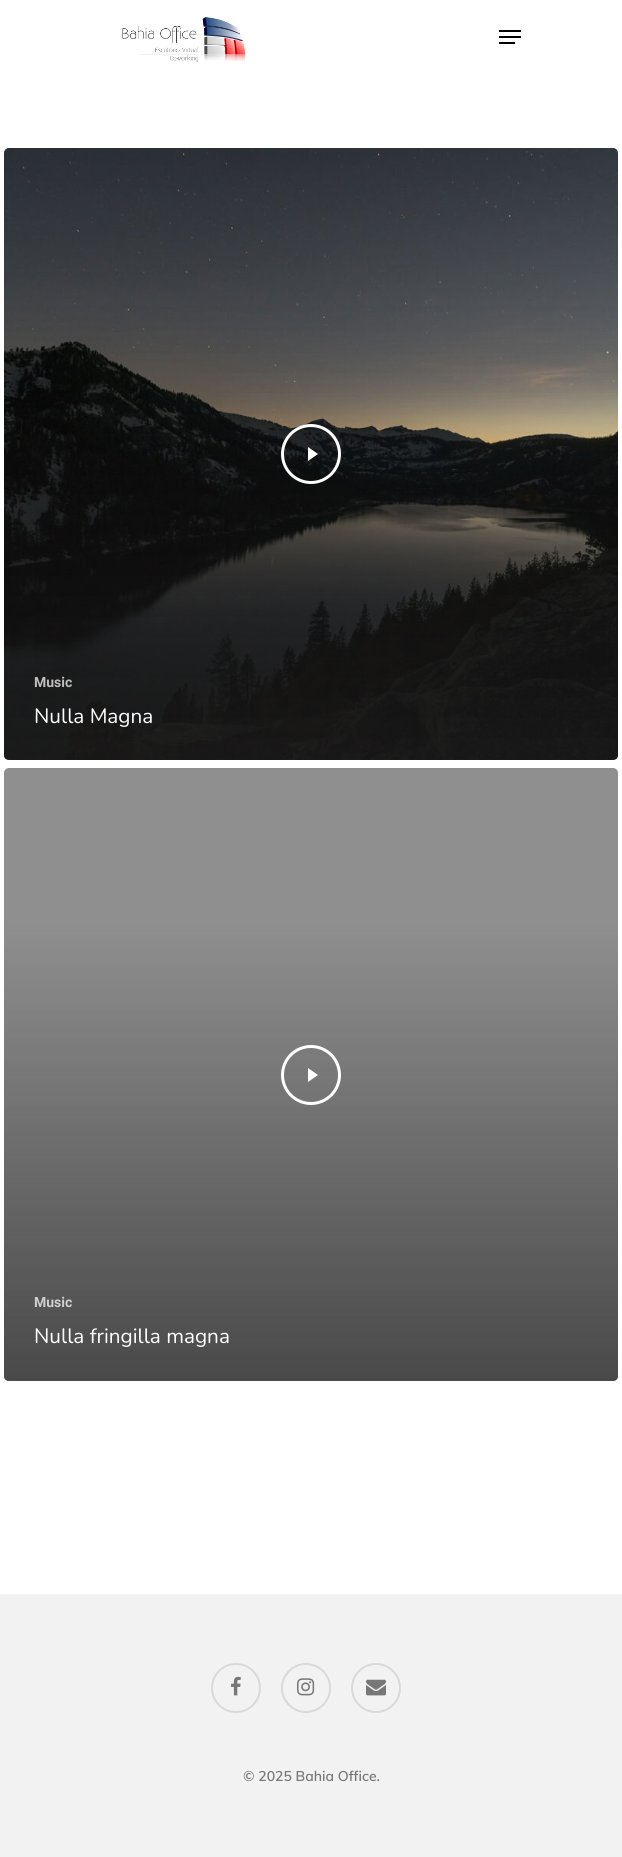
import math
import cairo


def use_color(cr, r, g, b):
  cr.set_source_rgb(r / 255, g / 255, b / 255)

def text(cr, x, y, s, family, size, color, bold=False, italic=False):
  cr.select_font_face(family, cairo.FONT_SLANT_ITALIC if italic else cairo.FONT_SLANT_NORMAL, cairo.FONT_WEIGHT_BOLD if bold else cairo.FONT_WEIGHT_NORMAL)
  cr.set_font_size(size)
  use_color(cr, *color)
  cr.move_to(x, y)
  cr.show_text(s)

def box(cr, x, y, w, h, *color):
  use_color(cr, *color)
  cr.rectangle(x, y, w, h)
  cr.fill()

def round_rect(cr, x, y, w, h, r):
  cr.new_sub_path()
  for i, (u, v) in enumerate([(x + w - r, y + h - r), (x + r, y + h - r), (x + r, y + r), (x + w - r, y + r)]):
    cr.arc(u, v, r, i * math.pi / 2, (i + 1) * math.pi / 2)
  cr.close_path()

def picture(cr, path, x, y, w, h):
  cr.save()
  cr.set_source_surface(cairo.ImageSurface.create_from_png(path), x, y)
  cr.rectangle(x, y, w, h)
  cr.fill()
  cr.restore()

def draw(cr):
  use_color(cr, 255, 255, 255)
  cr.paint()
  picture(cr, "img_01.png", 122, 17, 124, 45)
  box(cr, 499, 30, 22, 2, 0, 0, 0)
  box(cr, 499, 42, 16, 2, 0, 0, 0)
  box(cr, 499, 36, 22, 2, 0, 0, 0)
  picture(cr, "img_02.png", 4, 148, 614, 612)
  gradient = cairo.LinearGradient(313, 302, 313, 763)
  gradient.add_color_stop_rgba(0, 0.137, 0.137, 0.137, 0)
  gradient.add_color_stop_rgba(1, 0.137, 0.137, 0.137, 0.65)
  cr.set_source(gradient)
  cr.new_path()
  cr.move_to(4, 302)
  cr.line_to(618, 302)
  cr.line_to(618, 755)
  cr.curve_to(618, 758, 616, 760, 613, 760)
  cr.line_to(9, 760)
  cr.curve_to(6, 760, 4, 758, 4, 755)
  cr.close_path()
  cr.fill()
  use_color(cr, 255, 255, 255)
  cr.new_path()
  cr.move_to(308, 447)
  cr.line_to(308, 461)
  cr.line_to(318, 454)
  cr.close_path()
  cr.fill()
  cr.arc(311, 454, 28.5, 0, 2 * math.pi)
  cr.set_line_width(3)
  cr.stroke()
  use_color(cr, 179, 179, 179)
  round_rect(cr, 4, 768, 614, 613, 5)
  cr.fill()
  cr.set_source_rgba(0, 0, 0, 0.2)
  round_rect(cr, 4, 768, 614, 613, 5)
  cr.fill()
  gradient = cairo.LinearGradient(313, 922, 313, 1384)
  gradient.add_color_stop_rgba(0, 0.137, 0.137, 0.137, 0)
  gradient.add_color_stop_rgba(1, 0.137, 0.137, 0.137, 0.65)
  cr.set_source(gradient)
  cr.new_path()
  cr.move_to(4, 922)
  cr.line_to(618, 922)
  cr.line_to(618, 1376)
  cr.curve_to(618, 1379, 616, 1381, 613, 1381)
  cr.line_to(9, 1381)
  cr.curve_to(6, 1381, 4, 1379, 4, 1376)
  cr.close_path()
  cr.fill()
  use_color(cr, 255, 255, 255)
  cr.new_path()
  cr.move_to(308, 1068)
  cr.line_to(308, 1082)
  cr.line_to(318, 1075)
  cr.close_path()
  cr.fill()
  cr.arc(311, 1075, 28.5, 0, 2 * math.pi)
  cr.stroke()
  box(cr, 0, 1595, 622, 262, 242, 242, 242)
  box(cr, 0, 1594, 622, 1, 244, 244, 244)
  picture(cr, "img_03.png", 231, 1676, 10, 20)
  cr.arc(236, 1688, 24, 0, 2 * math.pi)
  use_color(cr, 217, 217, 217)
  cr.set_line_width(2)
  cr.stroke()
  picture(cr, "img_04.png", 297, 1678, 18, 18)
  cr.arc(306, 1688, 24, 0, 2 * math.pi)
  cr.stroke()
  picture(cr, "img_05.png", 366, 1679, 20, 17)
  cr.arc(376, 1688, 24, 0, 2 * math.pi)
  cr.stroke()
  text(cr, 34, 687, "Music", "Roboto", 14, (191, 191, 191), bold=True)
  text(cr, 34, 723, "Nulla Magna", "Nunito", 20.75, (255, 255, 255))
  text(cr, 34, 1307, "Music", "Roboto", 14, (208, 208, 208), bold=True)
  text(cr, 34, 1343, "Nulla fringilla magna", "Nunito", 20.75, (255, 255, 255))
  text(cr, 243, 1781, "© 2025 Bahia Office.", "Muli SemiBold", 14, (119, 119, 119))


surface = cairo.ImageSurface(cairo.FORMAT_RGB24, 622, 1857)
cr = cairo.Context(surface)
options = cairo.FontOptions()
options.set_hint_metrics(cairo.HINT_METRICS_OFF)
options.set_hint_style(cairo.HINT_STYLE_NONE)
cr.set_font_options(options)
cr.set_miter_limit(4)
draw(cr)
surface.write_to_png("out.png")
